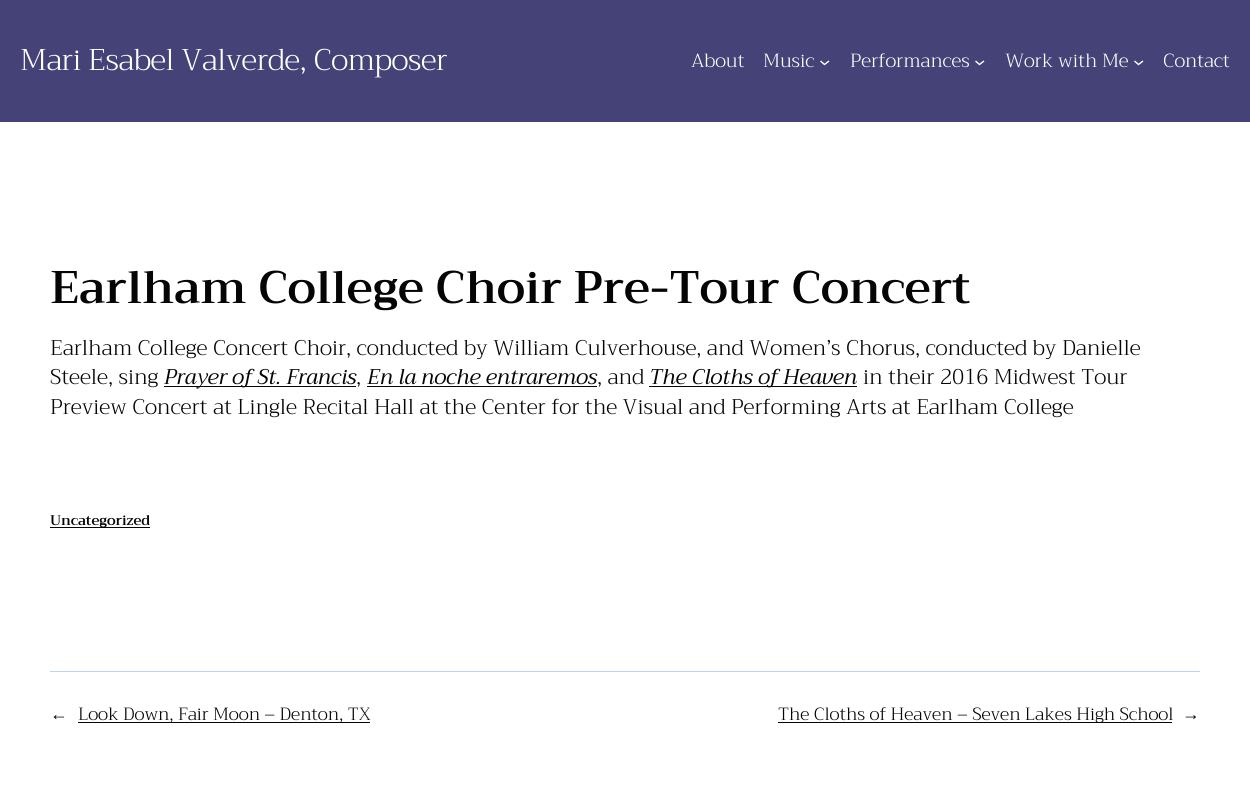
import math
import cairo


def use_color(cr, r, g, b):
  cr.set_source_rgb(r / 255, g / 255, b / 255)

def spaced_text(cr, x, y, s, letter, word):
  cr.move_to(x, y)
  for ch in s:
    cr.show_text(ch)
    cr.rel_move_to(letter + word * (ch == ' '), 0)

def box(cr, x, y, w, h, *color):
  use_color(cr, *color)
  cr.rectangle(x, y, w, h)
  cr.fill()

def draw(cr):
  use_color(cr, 255, 255, 255)
  cr.paint()
  box(cr, 0, 0, 1250, 122, 68, 66, 118)
  cr.new_path()
  cr.move_to(820.5, 61)
  cr.line_to(824.5, 64.5)
  cr.line_to(829, 61)
  use_color(cr, 255, 255, 255)
  cr.set_line_width(1.4)
  cr.stroke()
  cr.new_path()
  cr.move_to(975.5, 61)
  cr.line_to(979.5, 64.5)
  cr.line_to(984, 61)
  cr.stroke()
  cr.new_path()
  cr.move_to(1134.5, 61)
  cr.line_to(1138.5, 64.5)
  cr.line_to(1143, 61)
  cr.stroke()
  box(cr, 164, 386, 192, 1, 5, 5, 5)
  box(cr, 367, 386, 230, 1, 5, 5, 5)
  box(cr, 649, 386, 208, 1, 5, 5, 5)
  box(cr, 50, 527, 100, 1, 5, 5, 5)
  box(cr, 50, 671, 1150, 1, 187, 212, 245)
  box(cr, 78, 722, 292, 1, 5, 5, 5)
  box(cr, 778, 722, 394, 1, 5, 5, 5)
  cr.select_font_face("Trirong Light")
  cr.set_font_size(30)
  use_color(cr, 255, 255, 255)
  spaced_text(cr, 20, 70, "Mari Esabel Valverde, Composer", -0.5, 0)
  cr.set_font_size(19)
  spaced_text(cr, 691, 67, "About", -0.1, 0)
  spaced_text(cr, 763, 67, "Music", -0.1, 0)
  spaced_text(cr, 850, 67, "Performances", -0.1, 0)
  spaced_text(cr, 1005, 67, "Work with Me", -0.1, 0)
  spaced_text(cr, 1163, 67, "Contact", -0.1, 0)
  cr.select_font_face("Trirong SemiBold")
  cr.set_font_size(45.7)
  use_color(cr, 5, 5, 5)
  spaced_text(cr, 50, 303, "Earlham College Choir Pre-Tour Concert", -0.1, 0)
  cr.select_font_face("Trirong Light")
  cr.set_font_size(21.32)
  spaced_text(cr, 50, 355, "Earlham College Concert Choir, conducted by William Culverhouse, and Women’s Chorus, conducted by Danielle", -0.1, 0)
  spaced_text(cr, 50, 384, "Steele, sing", -0.1, 0)
  cr.select_font_face("Trirong", cairo.FONT_SLANT_ITALIC)
  spaced_text(cr, 164, 384, "Prayer of St. Francis", -0.1, 0)
  cr.select_font_face("Trirong Light")
  spaced_text(cr, 356, 384, ",", -0.1, 0)
  cr.select_font_face("Trirong", cairo.FONT_SLANT_ITALIC)
  spaced_text(cr, 367, 384, "En la noche entraremos", -0.1, 0)
  cr.select_font_face("Trirong Light")
  spaced_text(cr, 597, 384, ", and", -0.1, 0)
  cr.select_font_face("Trirong", cairo.FONT_SLANT_ITALIC)
  spaced_text(cr, 649, 384, "The Cloths of Heaven", -0.1, 0)
  cr.select_font_face("Trirong Light")
  spaced_text(cr, 863, 384, "in their 2016 Midwest Tour", -0.1, 0)
  spaced_text(cr, 50, 414, "Preview Concert at Lingle Recital Hall at the Center for the Visual and Performing Arts at Earlham College", -0.1, 0)
  cr.select_font_face("Trirong SemiBold")
  cr.set_font_size(14)
  spaced_text(cr, 50, 525, "Uncategorized", -0.1, 0)
  cr.select_font_face("Trirong Light")
  cr.set_font_size(17.7)
  spaced_text(cr, 50, 720, "←", -0.1, 0)
  spaced_text(cr, 78, 720, "Look Down, Fair Moon – Denton, TX", -0.1, 0)
  spaced_text(cr, 778, 720, "The Cloths of Heaven – Seven Lakes High School", -0.1, 0)
  spaced_text(cr, 1182, 720, "→", -0.1, 0)


surface = cairo.ImageSurface(cairo.FORMAT_RGB24, 1250, 790)
cr = cairo.Context(surface)
options = cairo.FontOptions()
options.set_hint_metrics(cairo.HINT_METRICS_OFF)
options.set_hint_style(cairo.HINT_STYLE_NONE)
cr.set_font_options(options)
cr.set_miter_limit(4)
draw(cr)
surface.write_to_png("out.png")
